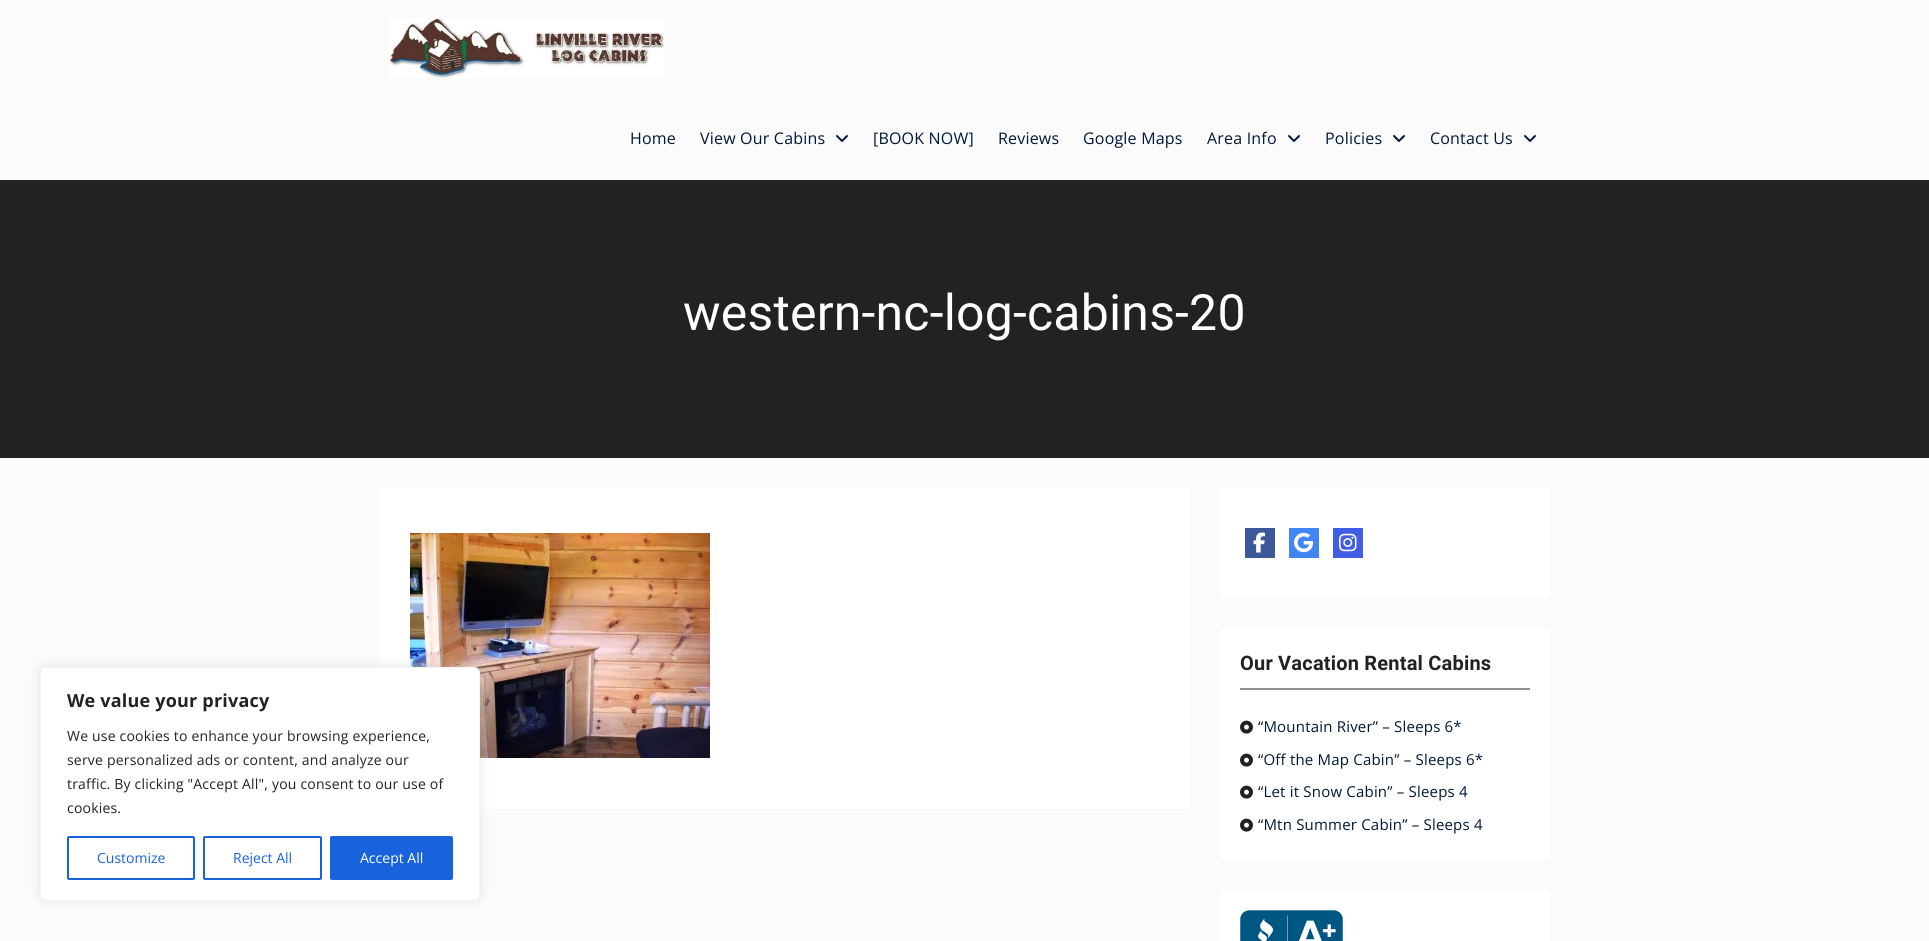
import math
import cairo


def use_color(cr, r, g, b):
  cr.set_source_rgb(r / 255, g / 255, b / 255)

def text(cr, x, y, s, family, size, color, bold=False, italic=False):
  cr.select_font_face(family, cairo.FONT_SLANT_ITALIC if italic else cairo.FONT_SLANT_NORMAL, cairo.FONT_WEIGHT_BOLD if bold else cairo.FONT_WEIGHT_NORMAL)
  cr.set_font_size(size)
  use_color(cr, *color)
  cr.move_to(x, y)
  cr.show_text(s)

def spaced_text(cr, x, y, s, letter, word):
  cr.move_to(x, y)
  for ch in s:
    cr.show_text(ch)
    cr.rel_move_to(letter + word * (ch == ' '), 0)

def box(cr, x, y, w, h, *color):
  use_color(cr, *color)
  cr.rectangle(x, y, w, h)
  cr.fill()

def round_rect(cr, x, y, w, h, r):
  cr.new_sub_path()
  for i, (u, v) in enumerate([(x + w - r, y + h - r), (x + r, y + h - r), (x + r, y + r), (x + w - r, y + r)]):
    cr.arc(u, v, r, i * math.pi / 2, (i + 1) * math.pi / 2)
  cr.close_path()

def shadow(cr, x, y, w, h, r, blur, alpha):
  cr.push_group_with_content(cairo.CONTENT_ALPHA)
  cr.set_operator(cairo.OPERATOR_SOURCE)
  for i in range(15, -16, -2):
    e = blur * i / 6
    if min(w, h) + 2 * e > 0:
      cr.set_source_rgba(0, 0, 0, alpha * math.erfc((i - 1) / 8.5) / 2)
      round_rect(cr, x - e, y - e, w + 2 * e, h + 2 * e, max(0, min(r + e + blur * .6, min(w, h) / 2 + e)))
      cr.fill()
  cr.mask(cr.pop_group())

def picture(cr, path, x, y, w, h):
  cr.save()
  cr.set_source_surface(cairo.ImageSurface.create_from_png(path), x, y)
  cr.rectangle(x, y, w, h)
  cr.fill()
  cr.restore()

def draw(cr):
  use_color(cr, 251, 251, 251)
  cr.paint()
  box(cr, 380, 488, 810, 321, 255, 255, 255)
  picture(cr, "img_03.png", 410, 533, 300, 225)
  use_color(cr, 172, 171, 171)
  shadow(cr, 40, 666, 440, 234, 6, 5, 0.3)
  use_color(cr, 255, 255, 255)
  round_rect(cr, 40.5, 667.5, 439, 233, 5.5)
  cr.fill_preserve()
  use_color(cr, 244, 244, 244)
  cr.set_line_width(1)
  cr.stroke()
  round_rect(cr, 68, 837, 126, 42, 1)
  use_color(cr, 24, 99, 220)
  cr.set_line_width(2)
  cr.stroke()
  round_rect(cr, 204, 837, 117, 42, 1)
  cr.stroke()
  round_rect(cr, 331, 837, 121, 42, 1)
  cr.fill_preserve()
  cr.stroke()
  box(cr, 0, 180, 1929, 278, 34, 34, 34)
  picture(cr, "img_01.png", 389, 18, 275, 60)
  picture(cr, "img_02.png", 836, 135, 12, 7)
  picture(cr, "img_02.png", 1288, 135, 12, 7)
  picture(cr, "img_02.png", 1393, 135, 12, 7)
  picture(cr, "img_02.png", 1524, 135, 12, 7)
  box(cr, 1220, 488, 330, 110, 255, 255, 255)
  box(cr, 1245, 528, 30, 30, 59, 89, 152)
  picture(cr, "img_04.png", 1253, 532, 12, 21)
  box(cr, 1289, 528, 30, 30, 66, 133, 244)
  picture(cr, "img_05.png", 1294, 532, 20, 21)
  box(cr, 1333, 528, 30, 30, 64, 93, 230)
  picture(cr, "img_06.png", 1339, 533, 18, 19)
  box(cr, 1220, 628, 330, 232, 255, 255, 255)
  box(cr, 1240, 688, 290, 2, 143, 143, 143)
  picture(cr, "img_07.png", 1240, 720, 13, 14)
  picture(cr, "img_07.png", 1240, 753, 13, 14)
  picture(cr, "img_07.png", 1240, 785, 13, 14)
  picture(cr, "img_07.png", 1240, 818, 13, 14)
  box(cr, 1220, 890, 330, 51, 255, 255, 255)
  picture(cr, "img_08.png", 1240, 910, 103, 31)
  cr.select_font_face("Open Sans", cairo.FONT_SLANT_NORMAL, cairo.FONT_WEIGHT_BOLD)
  cr.set_font_size(18)
  use_color(cr, 34, 34, 34)
  spaced_text(cr, 67, 707, "We value your privacy", 0.2, 0)
  cr.select_font_face("Open Sans")
  cr.set_font_size(14)
  spaced_text(cr, 67, 741, "We use cookies to enhance your browsing experience,", 0.2, 0)
  spaced_text(cr, 67, 765, "serve personalized ads or content, and analyze our", 0.2, 0)
  spaced_text(cr, 67, 789, "traffic. By clicking \"Accept All\", you consent to our use of", 0.2, 0)
  spaced_text(cr, 67, 813, "cookies.", 0.2, 0)
  text(cr, 97, 863, "Customize", "Open Sans", 14, (24, 99, 220))
  text(cr, 233, 863, "Reject All", "Open Sans", 14, (24, 99, 220))
  text(cr, 360, 863, "Accept All", "Open Sans", 14, (255, 255, 255))
  cr.set_font_size(16)
  use_color(cr, 0, 24, 55)
  spaced_text(cr, 630, 144, "Home", 0.2, 0)
  spaced_text(cr, 700, 144, "View Our Cabins", 0.2, 0)
  spaced_text(cr, 873, 144, "[BOOK NOW]", 0.2, 0)
  spaced_text(cr, 998, 144, "Reviews", 0.2, 0)
  spaced_text(cr, 1083, 144, "Google Maps", 0.2, 0)
  spaced_text(cr, 1207, 144, "Area Info", 0.2, 0)
  spaced_text(cr, 1325, 144, "Policies", 0.2, 0)
  spaced_text(cr, 1430, 144, "Contact Us", 0.2, 0)
  cr.select_font_face("Roboto")
  cr.set_font_size(50)
  use_color(cr, 255, 255, 255)
  spaced_text(cr, 683, 330, "western-nc-log-cabins-20", 0.2, 0)
  cr.select_font_face("Roboto", cairo.FONT_SLANT_NORMAL, cairo.FONT_WEIGHT_BOLD)
  cr.set_font_size(20)
  use_color(cr, 34, 34, 34)
  spaced_text(cr, 1240, 670, "Our Vacation Rental Cabins", 0.2, 0)
  cr.select_font_face("Open Sans")
  cr.set_font_size(15)
  use_color(cr, 0, 24, 55)
  spaced_text(cr, 1258, 732, "“Mountain River” – Sleeps 6*", 0.2, 0)
  spaced_text(cr, 1258, 765, "“Off the Map Cabin” – Sleeps 6*", 0.2, 0)
  spaced_text(cr, 1258, 797, "“Let it Snow Cabin” – Sleeps 4", 0.2, 0)
  spaced_text(cr, 1258, 830, "“Mtn Summer Cabin” – Sleeps 4", 0.2, 0)


surface = cairo.ImageSurface(cairo.FORMAT_RGB24, 1929, 941)
cr = cairo.Context(surface)
options = cairo.FontOptions()
options.set_hint_metrics(cairo.HINT_METRICS_OFF)
options.set_hint_style(cairo.HINT_STYLE_NONE)
cr.set_font_options(options)
cr.set_miter_limit(4)
draw(cr)
surface.write_to_png("out.png")
